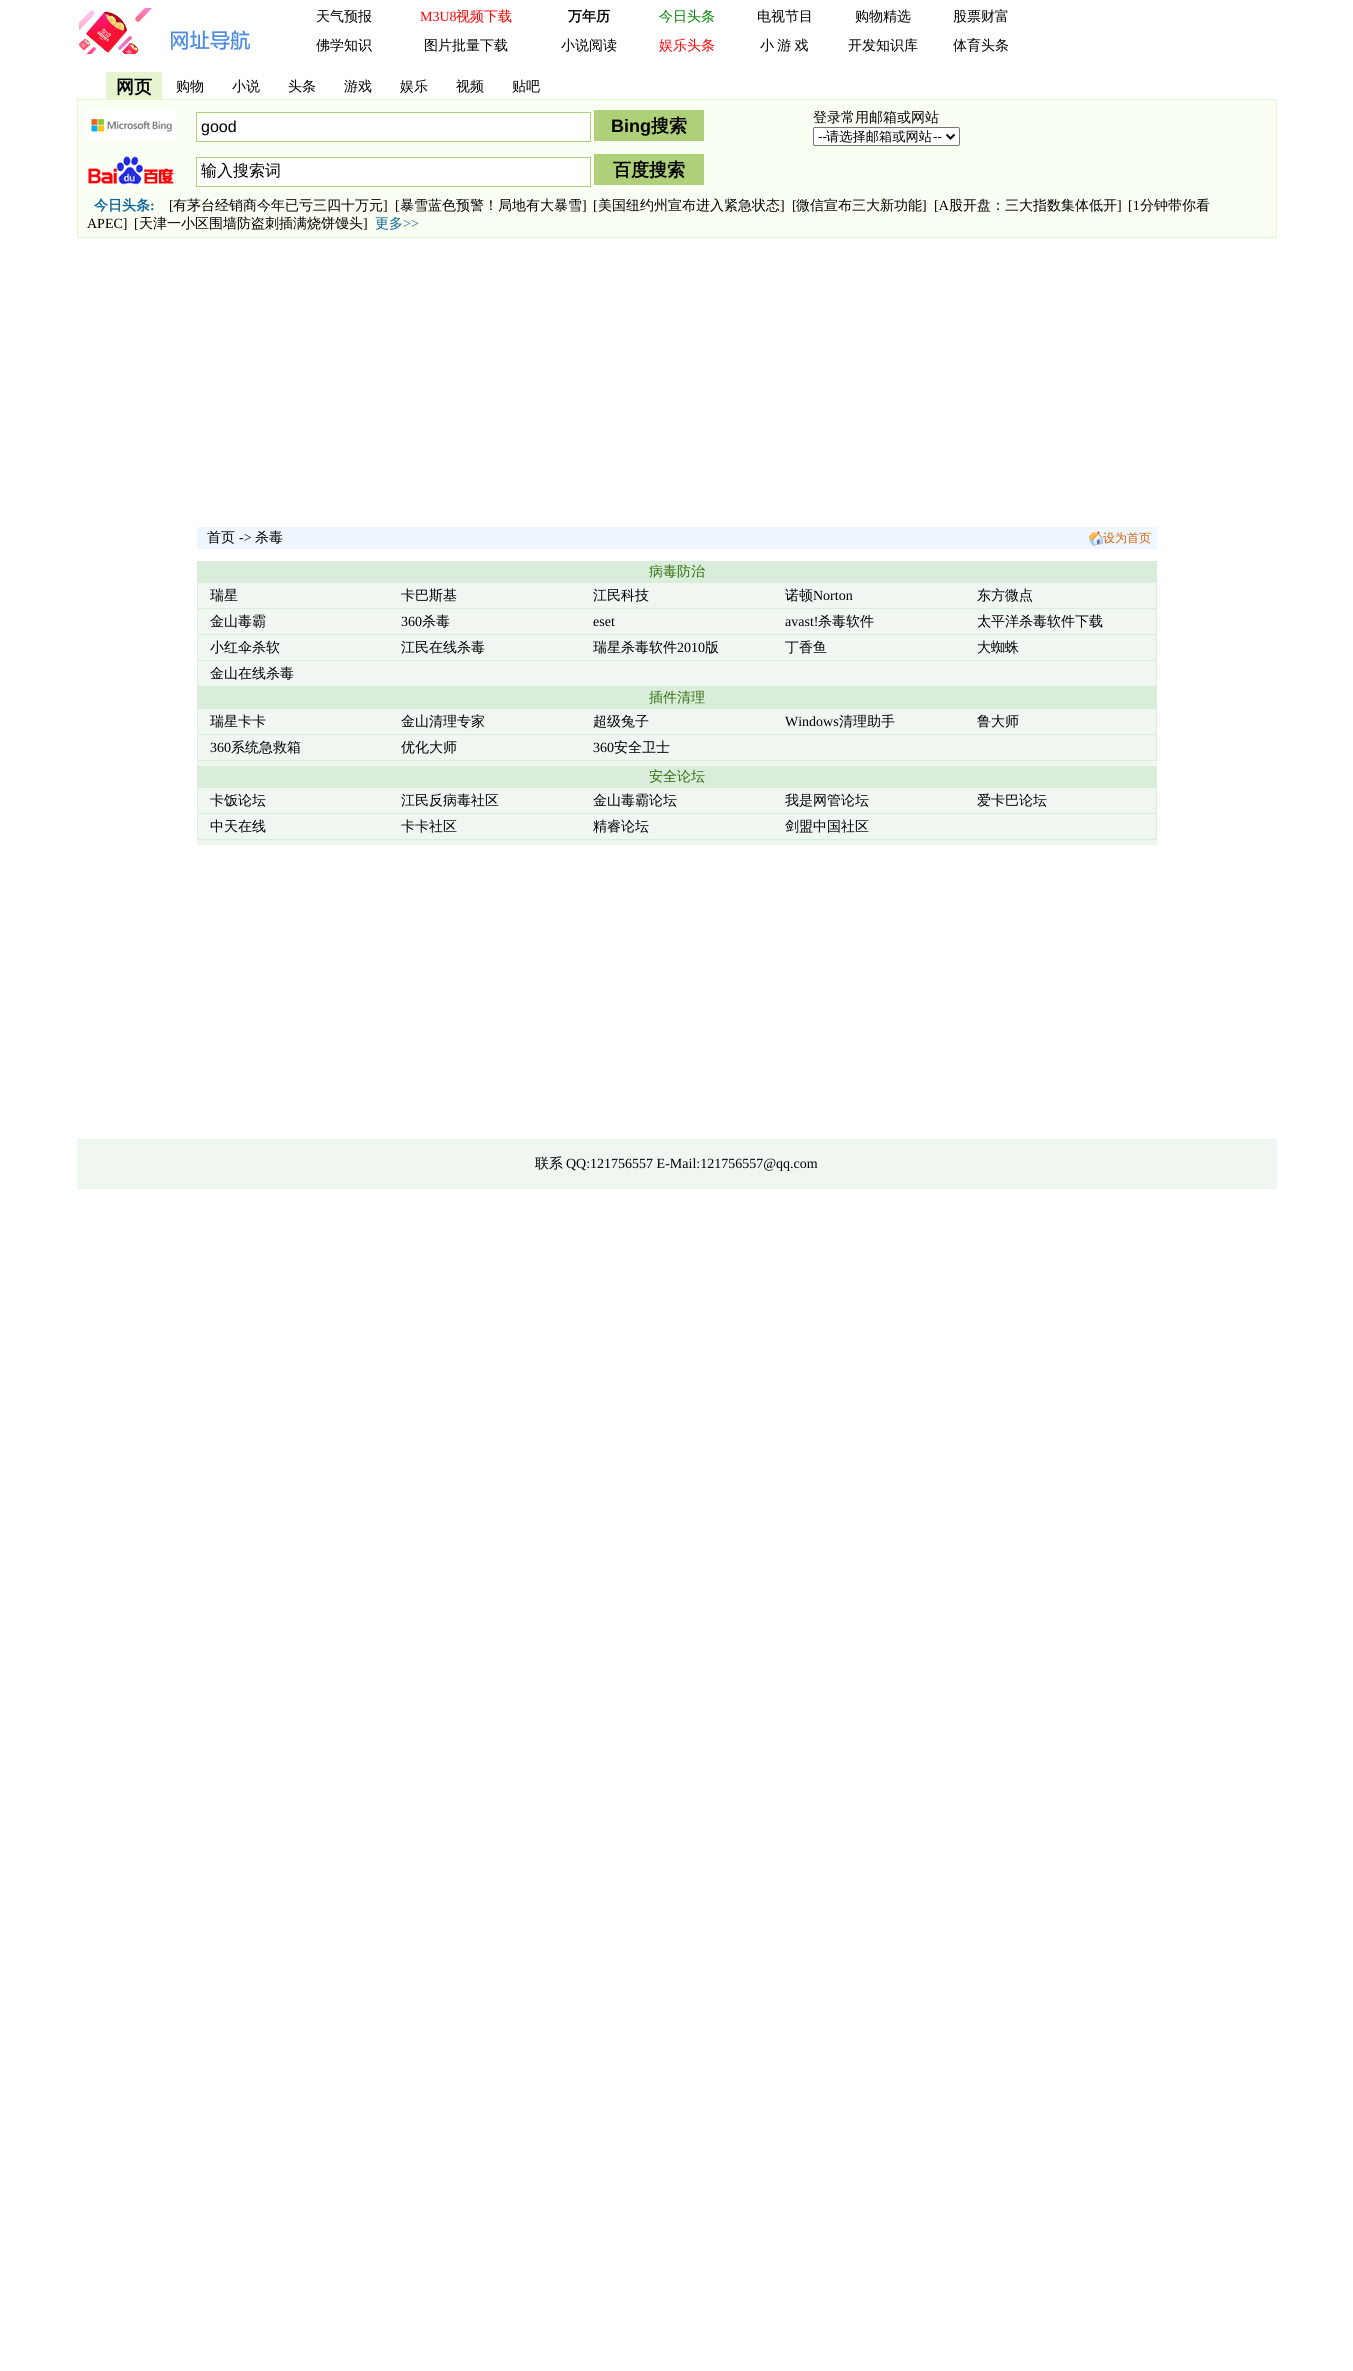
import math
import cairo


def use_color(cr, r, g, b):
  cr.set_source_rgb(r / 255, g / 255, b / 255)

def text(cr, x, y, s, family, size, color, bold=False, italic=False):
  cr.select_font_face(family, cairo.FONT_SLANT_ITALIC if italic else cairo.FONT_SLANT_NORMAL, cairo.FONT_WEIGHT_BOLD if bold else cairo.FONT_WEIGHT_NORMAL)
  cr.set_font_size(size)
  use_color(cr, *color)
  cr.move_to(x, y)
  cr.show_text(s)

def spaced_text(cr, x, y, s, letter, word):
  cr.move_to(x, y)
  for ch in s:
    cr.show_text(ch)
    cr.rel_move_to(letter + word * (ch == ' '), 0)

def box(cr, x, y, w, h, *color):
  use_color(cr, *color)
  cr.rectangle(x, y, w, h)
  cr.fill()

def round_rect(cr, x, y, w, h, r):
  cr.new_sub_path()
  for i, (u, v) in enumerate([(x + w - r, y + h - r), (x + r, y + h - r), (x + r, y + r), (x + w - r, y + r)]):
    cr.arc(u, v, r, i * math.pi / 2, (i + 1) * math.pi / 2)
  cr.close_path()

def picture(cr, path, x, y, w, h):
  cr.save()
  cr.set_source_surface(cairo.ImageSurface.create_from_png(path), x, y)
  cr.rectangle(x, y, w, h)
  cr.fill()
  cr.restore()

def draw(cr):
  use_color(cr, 255, 255, 255)
  cr.paint()
  picture(cr, "img_01.png", 79, 8, 171, 46)
  box(cr, 106, 72, 56, 27, 230, 244, 208)
  use_color(cr, 250, 255, 243)
  cr.rectangle(77.5, 99.5, 1199, 138)
  cr.fill_preserve()
  use_color(cr, 230, 244, 208)
  cr.set_line_width(1)
  cr.stroke()
  picture(cr, "img_02.png", 86, 110, 89, 31)
  use_color(cr, 255, 255, 255)
  cr.rectangle(196.5, 112.5, 394, 29)
  cr.fill_preserve()
  use_color(cr, 174, 208, 121)
  cr.stroke()
  box(cr, 594, 110, 110, 31, 174, 208, 121)
  picture(cr, "img_03.png", 87, 155, 88, 31)
  use_color(cr, 255, 255, 255)
  cr.rectangle(196.5, 157.5, 394, 29)
  cr.fill_preserve()
  use_color(cr, 174, 208, 121)
  cr.stroke()
  box(cr, 594, 154, 110, 31, 174, 208, 121)
  use_color(cr, 255, 255, 255)
  round_rect(cr, 813.5, 127.5, 146, 18, 1.5)
  cr.fill_preserve()
  use_color(cr, 118, 118, 118)
  cr.stroke()
  cr.new_path()
  cr.move_to(946.5, 134.5)
  cr.line_to(950.5, 138.5)
  cr.line_to(954.5, 134.5)
  use_color(cr, 0, 0, 0)
  cr.set_line_width(2)
  cr.stroke()
  box(cr, 197, 527, 960, 22, 238, 247, 255)
  picture(cr, "img_04.png", 1088, 531, 15, 15)
  box(cr, 197, 561, 960, 200, 217, 237, 218)
  box(cr, 198, 583, 958, 25, 239, 247, 240)
  box(cr, 198, 609, 958, 25, 239, 247, 240)
  box(cr, 198, 635, 958, 25, 239, 247, 240)
  box(cr, 198, 661, 958, 25, 239, 247, 240)
  box(cr, 198, 709, 958, 25, 239, 247, 240)
  box(cr, 198, 735, 958, 25, 239, 247, 240)
  box(cr, 197, 761, 960, 5, 239, 247, 240)
  box(cr, 197, 766, 960, 74, 217, 237, 218)
  box(cr, 198, 788, 958, 25, 239, 247, 240)
  box(cr, 198, 814, 958, 25, 239, 247, 240)
  box(cr, 197, 840, 960, 5, 239, 247, 240)
  box(cr, 77, 1139, 1200, 50, 239, 247, 240)
  text(cr, 316, 21, "天气预报", "WenQuanYi Zen Hei Medium", 14, (0, 0, 0))
  text(cr, 420, 21, "M3U8", "Liberation Serif", 14, (255, 0, 0))
  text(cr, 456, 21, "视频下载", "WenQuanYi Zen Hei Medium", 14, (255, 0, 0))
  text(cr, 568, 21, "万年历", "WenQuanYi Zen Hei", 14, (0, 0, 0), bold=True)
  text(cr, 659, 21, "今日头条", "WenQuanYi Zen Hei Medium", 14, (0, 128, 0))
  text(cr, 757, 21, "电视节目", "WenQuanYi Zen Hei Medium", 14, (0, 0, 0))
  text(cr, 855, 21, "购物精选", "WenQuanYi Zen Hei Medium", 14, (0, 0, 0))
  text(cr, 953, 21, "股票财富", "WenQuanYi Zen Hei Medium", 14, (0, 0, 0))
  text(cr, 316, 50, "佛学知识", "WenQuanYi Zen Hei Medium", 14, (0, 0, 0))
  text(cr, 424, 50, "图片批量下载", "WenQuanYi Zen Hei Medium", 14, (0, 0, 0))
  text(cr, 561, 50, "小说阅读", "WenQuanYi Zen Hei Medium", 14, (0, 0, 0))
  text(cr, 659, 50, "娱乐头条", "WenQuanYi Zen Hei Medium", 14, (255, 0, 0))
  use_color(cr, 0, 0, 0)
  spaced_text(cr, 760, 50, "小 游 戏", 0, -1)
  text(cr, 848, 50, "开发知识库", "WenQuanYi Zen Hei Medium", 14, (0, 0, 0))
  text(cr, 953, 50, "体育头条", "WenQuanYi Zen Hei Medium", 14, (0, 0, 0))
  text(cr, 116, 93, "网页", "WenQuanYi Zen Hei", 18, (0, 0, 0), bold=True)
  text(cr, 176, 91, "购物", "WenQuanYi Zen Hei Medium", 14, (0, 0, 0))
  text(cr, 232, 91, "小说", "WenQuanYi Zen Hei Medium", 14, (0, 0, 0))
  text(cr, 288, 91, "头条", "WenQuanYi Zen Hei Medium", 14, (0, 0, 0))
  text(cr, 344, 91, "游戏", "WenQuanYi Zen Hei Medium", 14, (0, 0, 0))
  text(cr, 400, 91, "娱乐", "WenQuanYi Zen Hei Medium", 14, (0, 0, 0))
  text(cr, 456, 91, "视频", "WenQuanYi Zen Hei Medium", 14, (0, 0, 0))
  text(cr, 512, 91, "贴吧", "WenQuanYi Zen Hei Medium", 14, (0, 0, 0))
  text(cr, 201, 132, "good", "Liberation Sans", 16, (0, 0, 0))
  text(cr, 611, 132, "Bing", "Liberation Sans", 18, (0, 0, 0), bold=True)
  text(cr, 651, 132, "搜索", "WenQuanYi Zen Hei", 18, (0, 0, 0), bold=True)
  cr.save()
  cr.rectangle(201, 161, 385, 21)
  cr.clip()
  text(cr, 201, 176, "输入搜索词", "WenQuanYi Zen Hei Medium", 16, (0, 0, 0))
  cr.restore()
  text(cr, 613, 176, "百度搜索", "WenQuanYi Zen Hei", 18, (0, 0, 0), bold=True)
  text(cr, 813, 122, "登录常用邮箱或网站", "WenQuanYi Zen Hei Medium", 14, (0, 0, 0))
  text(cr, 818, 141, "--", "Liberation Sans", 13.25, (0, 0, 0))
  text(cr, 826, 141, "请选择邮箱或网站", "WenQuanYi Zen Hei Medium", 13.25, (0, 0, 0))
  text(cr, 933, 141, "--", "Liberation Sans", 13.25, (0, 0, 0))
  text(cr, 94, 210, "今日头条", "WenQuanYi Zen Hei", 14, (17, 102, 153), bold=True)
  text(cr, 150, 210, ":", "Liberation Serif", 14, (17, 102, 153), bold=True)
  text(cr, 169, 210, "[", "Liberation Serif", 14, (0, 0, 0))
  text(cr, 173, 210, "有茅台经销商今年已亏三四十万元", "WenQuanYi Zen Hei Medium", 14, (0, 0, 0))
  text(cr, 383, 210, "]", "Liberation Serif", 14, (0, 0, 0))
  text(cr, 395, 210, "[", "Liberation Serif", 14, (0, 0, 0))
  text(cr, 400, 210, "暴雪蓝色预警！局地有大暴雪", "WenQuanYi Zen Hei Medium", 14, (0, 0, 0))
  text(cr, 582, 210, "]", "Liberation Serif", 14, (0, 0, 0))
  text(cr, 593, 210, "[", "Liberation Serif", 14, (0, 0, 0))
  text(cr, 598, 210, "美国纽约州宣布进入紧急状态", "WenQuanYi Zen Hei Medium", 14, (0, 0, 0))
  text(cr, 780, 210, "]", "Liberation Serif", 14, (0, 0, 0))
  text(cr, 792, 210, "[", "Liberation Serif", 14, (0, 0, 0))
  text(cr, 796, 210, "微信宣布三大新功能", "WenQuanYi Zen Hei Medium", 14, (0, 0, 0))
  text(cr, 922, 210, "]", "Liberation Serif", 14, (0, 0, 0))
  text(cr, 934, 210, "[A", "Liberation Serif", 14, (0, 0, 0))
  text(cr, 949, 210, "股开盘：三大指数集体低开", "WenQuanYi Zen Hei Medium", 14, (0, 0, 0))
  text(cr, 1117, 210, "]", "Liberation Serif", 14, (0, 0, 0))
  text(cr, 1128, 210, "[1", "Liberation Serif", 14, (0, 0, 0))
  text(cr, 1140, 210, "分钟带你看", "WenQuanYi Zen Hei Medium", 14, (0, 0, 0))
  text(cr, 87, 228, "APEC]", "Liberation Serif", 14, (0, 0, 0))
  text(cr, 134, 228, "[", "Liberation Serif", 14, (0, 0, 0))
  text(cr, 139, 228, "天津一小区围墙防盗刺插满烧饼馒头", "WenQuanYi Zen Hei Medium", 14, (0, 0, 0))
  text(cr, 363, 228, "]", "Liberation Serif", 14, (0, 0, 0))
  text(cr, 375, 228, "更多", "WenQuanYi Zen Hei Medium", 14, (17, 102, 153))
  text(cr, 403, 228, ">>", "Liberation Serif", 14, (17, 102, 153))
  text(cr, 207, 542, "首页", "WenQuanYi Zen Hei Medium", 14, (0, 0, 0))
  text(cr, 239, 542, "->", "Liberation Serif", 14, (0, 0, 0))
  text(cr, 255, 542, "杀毒", "WenQuanYi Zen Hei Medium", 14, (0, 0, 0))
  text(cr, 1103, 542, "设为首页", "WenQuanYi Zen Hei Medium", 12, (211, 94, 4))
  text(cr, 649, 576, "病毒防治", "WenQuanYi Zen Hei Medium", 14, (52, 111, 14))
  text(cr, 210, 600, "瑞星", "WenQuanYi Zen Hei Medium", 14, (0, 0, 0))
  text(cr, 401, 600, "卡巴斯基", "WenQuanYi Zen Hei Medium", 14, (0, 0, 0))
  text(cr, 593, 600, "江民科技", "WenQuanYi Zen Hei Medium", 14, (0, 0, 0))
  text(cr, 785, 600, "诺顿", "WenQuanYi Zen Hei Medium", 14, (0, 0, 0))
  text(cr, 813, 600, "Norton", "Liberation Serif", 14, (0, 0, 0))
  text(cr, 977, 600, "东方微点", "WenQuanYi Zen Hei Medium", 14, (0, 0, 0))
  text(cr, 210, 626, "金山毒霸", "WenQuanYi Zen Hei Medium", 14, (0, 0, 0))
  text(cr, 401, 626, "360", "Liberation Serif", 14, (0, 0, 0))
  text(cr, 422, 626, "杀毒", "WenQuanYi Zen Hei Medium", 14, (0, 0, 0))
  text(cr, 593, 626, "eset", "Liberation Serif", 14, (0, 0, 0))
  text(cr, 785, 626, "avast!", "Liberation Serif", 14, (0, 0, 0))
  text(cr, 818, 626, "杀毒软件", "WenQuanYi Zen Hei Medium", 14, (0, 0, 0))
  text(cr, 977, 626, "太平洋杀毒软件下载", "WenQuanYi Zen Hei Medium", 14, (0, 0, 0))
  text(cr, 210, 652, "小红伞杀软", "WenQuanYi Zen Hei Medium", 14, (0, 0, 0))
  text(cr, 401, 652, "江民在线杀毒", "WenQuanYi Zen Hei Medium", 14, (0, 0, 0))
  text(cr, 593, 652, "瑞星杀毒软件", "WenQuanYi Zen Hei Medium", 14, (0, 0, 0))
  text(cr, 677, 652, "2010", "Liberation Serif", 14, (0, 0, 0))
  text(cr, 705, 652, "版", "WenQuanYi Zen Hei Medium", 14, (0, 0, 0))
  text(cr, 785, 652, "丁香鱼", "WenQuanYi Zen Hei Medium", 14, (0, 0, 0))
  text(cr, 977, 652, "大蜘蛛", "WenQuanYi Zen Hei Medium", 14, (0, 0, 0))
  text(cr, 210, 678, "金山在线杀毒", "WenQuanYi Zen Hei Medium", 14, (0, 0, 0))
  text(cr, 649, 702, "插件清理", "WenQuanYi Zen Hei Medium", 14, (52, 111, 14))
  text(cr, 210, 726, "瑞星卡卡", "WenQuanYi Zen Hei Medium", 14, (0, 0, 0))
  text(cr, 401, 726, "金山清理专家", "WenQuanYi Zen Hei Medium", 14, (0, 0, 0))
  text(cr, 593, 726, "超级兔子", "WenQuanYi Zen Hei Medium", 14, (0, 0, 0))
  text(cr, 785, 726, "Windows", "Liberation Serif", 14, (0, 0, 0))
  text(cr, 839, 726, "清理助手", "WenQuanYi Zen Hei Medium", 14, (0, 0, 0))
  text(cr, 977, 726, "鲁大师", "WenQuanYi Zen Hei Medium", 14, (0, 0, 0))
  text(cr, 210, 752, "360", "Liberation Serif", 14, (0, 0, 0))
  text(cr, 231, 752, "系统急救箱", "WenQuanYi Zen Hei Medium", 14, (0, 0, 0))
  text(cr, 401, 752, "优化大师", "WenQuanYi Zen Hei Medium", 14, (0, 0, 0))
  text(cr, 593, 752, "360", "Liberation Serif", 14, (0, 0, 0))
  text(cr, 614, 752, "安全卫士", "WenQuanYi Zen Hei Medium", 14, (0, 0, 0))
  text(cr, 649, 781, "安全论坛", "WenQuanYi Zen Hei Medium", 14, (52, 111, 14))
  text(cr, 210, 805, "卡饭论坛", "WenQuanYi Zen Hei Medium", 14, (0, 0, 0))
  text(cr, 401, 805, "江民反病毒社区", "WenQuanYi Zen Hei Medium", 14, (0, 0, 0))
  text(cr, 593, 805, "金山毒霸论坛", "WenQuanYi Zen Hei Medium", 14, (0, 0, 0))
  text(cr, 785, 805, "我是网管论坛", "WenQuanYi Zen Hei Medium", 14, (0, 0, 0))
  text(cr, 977, 805, "爱卡巴论坛", "WenQuanYi Zen Hei Medium", 14, (0, 0, 0))
  text(cr, 210, 831, "中天在线", "WenQuanYi Zen Hei Medium", 14, (0, 0, 0))
  text(cr, 401, 831, "卡卡社区", "WenQuanYi Zen Hei Medium", 14, (0, 0, 0))
  text(cr, 593, 831, "精睿论坛", "WenQuanYi Zen Hei Medium", 14, (0, 0, 0))
  text(cr, 785, 831, "剑盟中国社区", "WenQuanYi Zen Hei Medium", 14, (0, 0, 0))
  text(cr, 535, 1168, "联系", "WenQuanYi Zen Hei Medium", 14, (0, 0, 0))
  text(cr, 566, 1168, "QQ:121756557 E-Mail:121756557@qq.com", "Liberation Serif", 14, (0, 0, 0))


surface = cairo.ImageSurface(cairo.FORMAT_RGB24, 1353, 2371)
cr = cairo.Context(surface)
options = cairo.FontOptions()
options.set_hint_metrics(cairo.HINT_METRICS_OFF)
options.set_hint_style(cairo.HINT_STYLE_NONE)
cr.set_font_options(options)
cr.set_miter_limit(4)
draw(cr)
surface.write_to_png("out.png")
